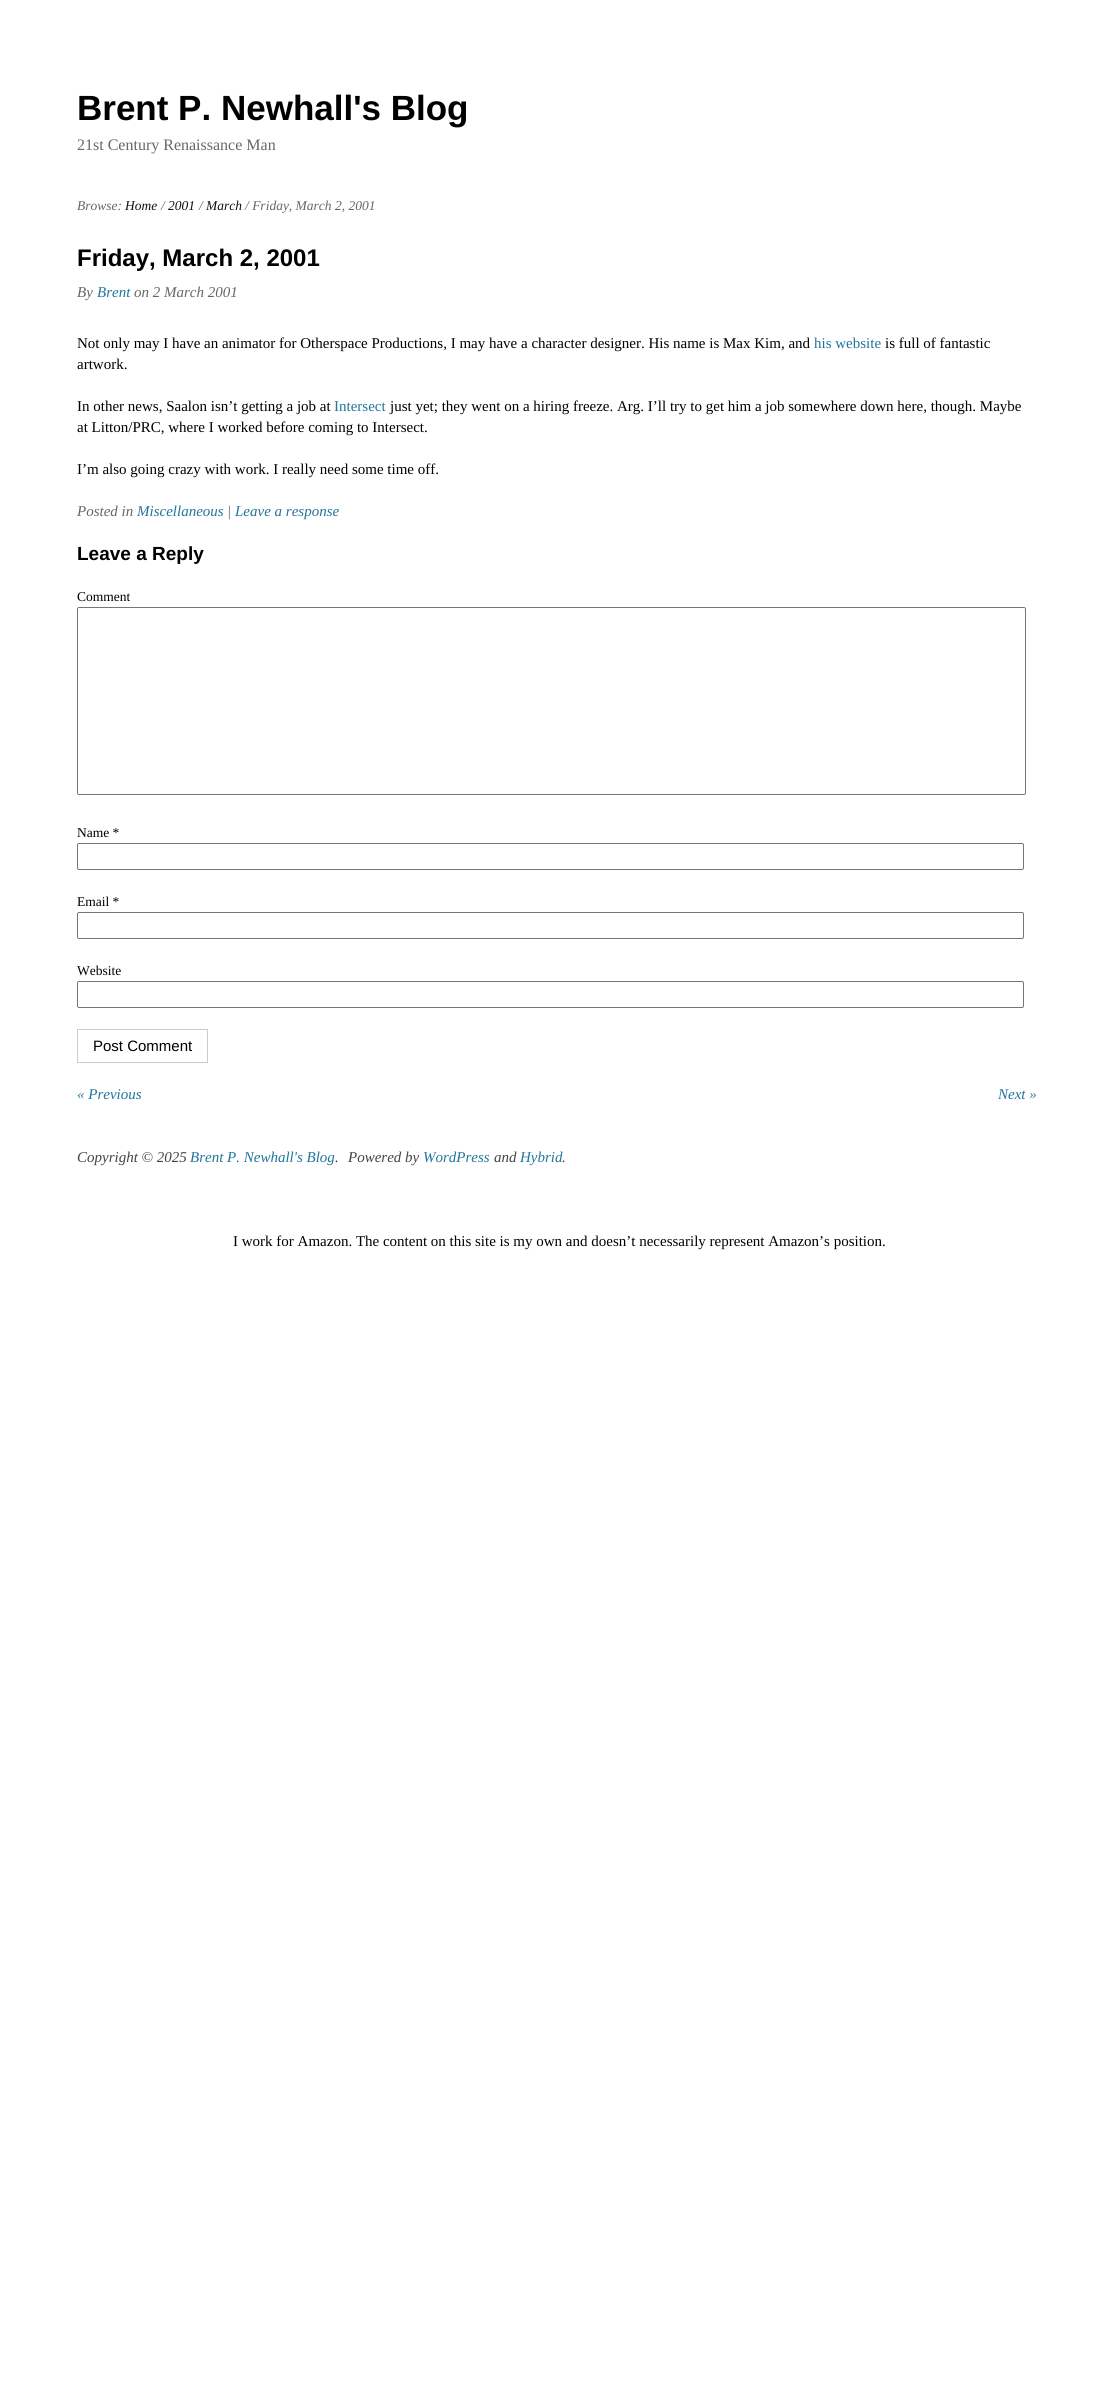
import math
import cairo


def use_color(cr, r, g, b):
  cr.set_source_rgb(r / 255, g / 255, b / 255)

def text(cr, x, y, s, family, size, color, bold=False, italic=False):
  cr.select_font_face(family, cairo.FONT_SLANT_ITALIC if italic else cairo.FONT_SLANT_NORMAL, cairo.FONT_WEIGHT_BOLD if bold else cairo.FONT_WEIGHT_NORMAL)
  cr.set_font_size(size)
  use_color(cr, *color)
  cr.move_to(x, y)
  cr.show_text(s)

def round_rect(cr, x, y, w, h, r):
  cr.new_sub_path()
  for i, (u, v) in enumerate([(x + w - r, y + h - r), (x + r, y + h - r), (x + r, y + r), (x + w - r, y + r)]):
    cr.arc(u, v, r, i * math.pi / 2, (i + 1) * math.pi / 2)
  cr.close_path()

def draw(cr):
  use_color(cr, 255, 255, 255)
  cr.paint()
  round_rect(cr, 77.5, 607.5, 948, 187, 1.5)
  use_color(cr, 118, 118, 118)
  cr.set_line_width(1)
  cr.stroke()
  round_rect(cr, 77.5, 843.5, 946, 26, 1.5)
  cr.stroke()
  round_rect(cr, 77.5, 912.5, 946, 26, 1.5)
  cr.stroke()
  round_rect(cr, 77.5, 981.5, 946, 26, 1.5)
  cr.stroke()
  cr.rectangle(77.5, 1029.5, 130, 33)
  use_color(cr, 204, 204, 204)
  cr.stroke()
  text(cr, 77, 120, "Brent P. Newhall's Blog", "Liberation Sans", 35, (0, 0, 0), bold=True)
  text(cr, 77, 150, "21st Century Renaissance Man", "Liberation Serif", 16, (102, 102, 102))
  text(cr, 77, 210, "Browse:", "Liberation Serif", 13.5, (102, 102, 102), italic=True)
  text(cr, 125, 210, "Home", "Liberation Serif", 13.5, (17, 17, 17), italic=True)
  text(cr, 161, 210, "/", "Liberation Serif", 13.5, (102, 102, 102), italic=True)
  text(cr, 168, 210, "2001", "Liberation Serif", 13.5, (17, 17, 17), italic=True)
  text(cr, 199, 210, "/", "Liberation Serif", 13.5, (102, 102, 102), italic=True)
  text(cr, 206, 210, "March", "Liberation Serif", 13.5, (17, 17, 17), italic=True)
  text(cr, 245, 210, "/ Friday, March 2, 2001", "Liberation Serif", 13.5, (102, 102, 102), italic=True)
  text(cr, 77, 266, "Friday, March 2, 2001", "Liberation Sans", 24, (0, 0, 0), bold=True)
  text(cr, 77, 297, "By", "Liberation Serif", 15, (102, 102, 102), italic=True)
  text(cr, 97, 297, "Brent", "Liberation Serif", 15, (33, 117, 155), italic=True)
  text(cr, 134, 297, "on 2 March 2001", "Liberation Serif", 15, (102, 102, 102), italic=True)
  text(cr, 77, 348, "Not only may I have an animator for Otherspace Productions, I may have a character designer. His name is Max Kim, and", "Liberation Serif", 15, (0, 0, 0))
  text(cr, 814, 348, "his website", "Liberation Serif", 15, (33, 117, 155))
  text(cr, 885, 348, "is full of fantastic", "Liberation Serif", 15, (0, 0, 0))
  text(cr, 77, 369, "artwork.", "Liberation Serif", 15, (0, 0, 0))
  text(cr, 77, 411, "In other news, Saalon isn’t getting a job at", "Liberation Serif", 15, (0, 0, 0))
  text(cr, 334, 411, "Intersect", "Liberation Serif", 15, (33, 117, 155))
  text(cr, 390, 411, "just yet; they went on a hiring freeze. Arg. I’ll try to get him a job somewhere down here, though. Maybe", "Liberation Serif", 15, (0, 0, 0))
  text(cr, 77, 432, "at Litton/PRC, where I worked before coming to Intersect.", "Liberation Serif", 15, (0, 0, 0))
  text(cr, 77, 474, "I’m also going crazy with work. I really need some time off.", "Liberation Serif", 15, (0, 0, 0))
  text(cr, 77, 516, "Posted in", "Liberation Serif", 15, (102, 102, 102), italic=True)
  text(cr, 137, 516, "Miscellaneous", "Liberation Serif", 15, (33, 117, 155), italic=True)
  text(cr, 227, 516, "|", "Liberation Serif", 15, (102, 102, 102), italic=True)
  text(cr, 235, 516, "Leave a response", "Liberation Serif", 15, (33, 117, 155), italic=True)
  text(cr, 77, 560, "Leave a Reply", "Liberation Sans", 19, (0, 0, 0), bold=True)
  text(cr, 77, 601, "Comment", "Liberation Serif", 13.5, (0, 0, 0))
  text(cr, 77, 837, "Name *", "Liberation Serif", 13.5, (0, 0, 0))
  text(cr, 77, 906, "Email *", "Liberation Serif", 13.5, (0, 0, 0))
  text(cr, 77, 975, "Website", "Liberation Serif", 13.5, (0, 0, 0))
  text(cr, 93, 1051, "Post Comment", "Liberation Sans", 15, (0, 0, 0))
  text(cr, 77, 1099, "« Previous", "Liberation Serif", 15, (33, 117, 155), italic=True)
  text(cr, 998, 1099, "Next »", "Liberation Serif", 15, (33, 117, 155), italic=True)
  text(cr, 77, 1162, "Copyright © 2025", "Liberation Serif", 15, (68, 68, 68), italic=True)
  text(cr, 190, 1162, "Brent P. Newhall's Blog", "Liberation Serif", 15, (33, 117, 155), italic=True)
  text(cr, 335, 1162, ".", "Liberation Serif", 15, (68, 68, 68), italic=True)
  text(cr, 348, 1162, "Powered by", "Liberation Serif", 15, (68, 68, 68), italic=True)
  text(cr, 423, 1162, "WordPress", "Liberation Serif", 15, (33, 117, 155), italic=True)
  text(cr, 494, 1162, "and", "Liberation Serif", 15, (68, 68, 68), italic=True)
  text(cr, 520, 1162, "Hybrid", "Liberation Serif", 15, (33, 117, 155), italic=True)
  text(cr, 562, 1162, ".", "Liberation Serif", 15, (68, 68, 68), italic=True)
  text(cr, 233, 1246, "I work for Amazon. The content on this site is my own and doesn’t necessarily represent Amazon’s position.", "Liberation Serif", 15, (0, 0, 0))


surface = cairo.ImageSurface(cairo.FORMAT_RGB24, 1114, 2392)
cr = cairo.Context(surface)
options = cairo.FontOptions()
options.set_hint_metrics(cairo.HINT_METRICS_OFF)
options.set_hint_style(cairo.HINT_STYLE_NONE)
cr.set_font_options(options)
cr.set_miter_limit(4)
draw(cr)
surface.write_to_png("out.png")
